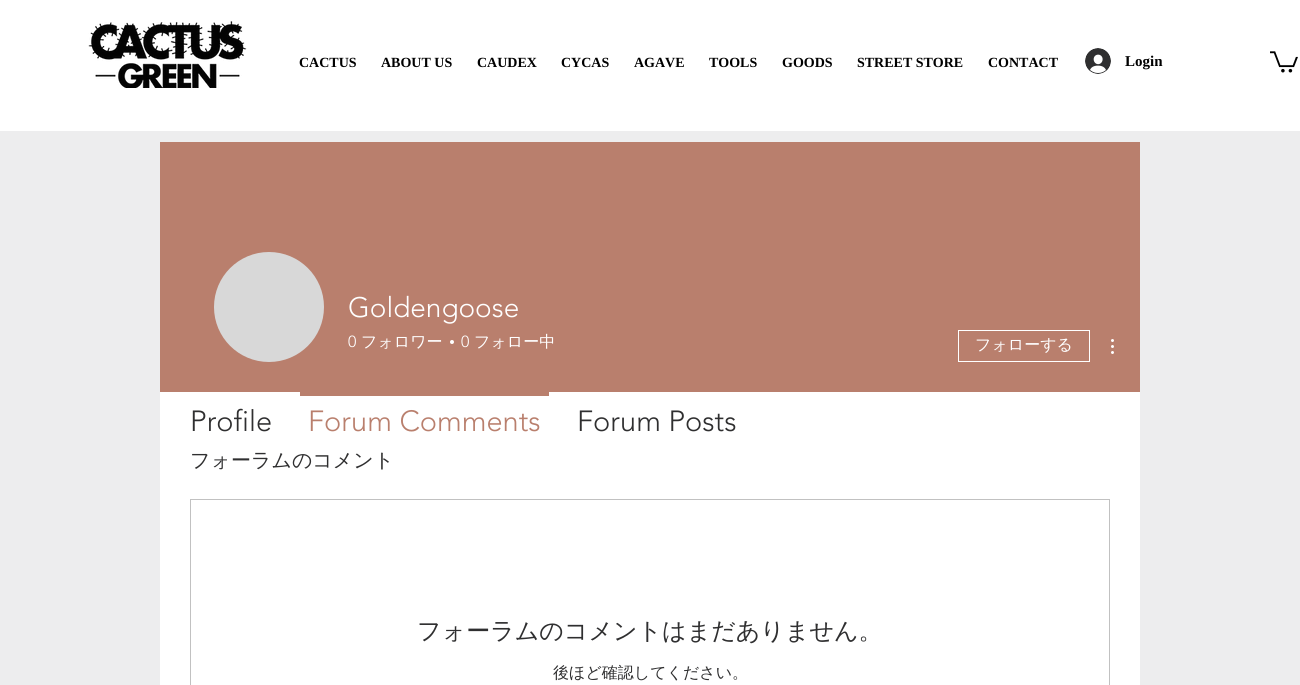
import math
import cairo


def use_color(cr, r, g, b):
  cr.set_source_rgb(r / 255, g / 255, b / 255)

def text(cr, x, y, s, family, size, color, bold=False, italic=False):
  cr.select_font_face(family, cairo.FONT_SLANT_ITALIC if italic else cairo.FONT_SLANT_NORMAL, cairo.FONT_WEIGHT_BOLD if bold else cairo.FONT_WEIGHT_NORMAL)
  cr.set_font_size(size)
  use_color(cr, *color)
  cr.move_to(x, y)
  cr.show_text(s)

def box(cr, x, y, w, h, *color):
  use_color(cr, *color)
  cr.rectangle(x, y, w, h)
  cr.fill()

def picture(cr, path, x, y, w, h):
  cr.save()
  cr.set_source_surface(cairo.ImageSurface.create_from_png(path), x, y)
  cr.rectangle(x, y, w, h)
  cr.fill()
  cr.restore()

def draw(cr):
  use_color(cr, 237, 237, 238)
  cr.paint()
  box(cr, 0, 0, 1300, 131, 255, 255, 255)
  picture(cr, "img_01.png", 88, 21, 159, 67)
  picture(cr, "img_02.png", 1085, 48, 26, 26)
  picture(cr, "img_03.png", 1270, 51, 28, 22)
  box(cr, 160, 142, 980, 250, 185, 127, 109)
  use_color(cr, 216, 216, 216)
  cr.arc(269, 307, 55, 0, 2 * math.pi)
  cr.fill()
  use_color(cr, 255, 255, 255)
  cr.arc(452, 342, 2, 0, 2 * math.pi)
  cr.fill()
  cr.rectangle(958.5, 330.5, 131, 31)
  cr.set_line_width(1)
  cr.stroke()
  picture(cr, "img_04.png", 1111, 339, 3, 15)
  box(cr, 160, 392, 980, 293, 255, 255, 255)
  box(cr, 300, 392, 249, 4, 185, 127, 109)
  cr.rectangle(190.5, 499.5, 919, 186)
  use_color(cr, 193, 193, 193)
  cr.stroke()
  text(cr, 299, 67, "CACTUS", "Liberation Serif", 14, (0, 0, 0), bold=True)
  text(cr, 381, 67, "ABOUT US", "Liberation Serif", 14, (0, 0, 0), bold=True)
  text(cr, 477, 67, "CAUDEX", "Liberation Serif", 14, (0, 0, 0), bold=True)
  text(cr, 561, 67, "CYCAS", "Liberation Serif", 14, (0, 0, 0), bold=True)
  text(cr, 634, 67, "AGAVE", "Liberation Serif", 14, (0, 0, 0), bold=True)
  text(cr, 709, 67, "TOOLS", "Liberation Serif", 14, (0, 0, 0), bold=True)
  text(cr, 782, 67, "GOODS", "Liberation Serif", 14, (0, 0, 0), bold=True)
  text(cr, 857, 67, "STREET STORE", "Liberation Serif", 14, (0, 0, 0), bold=True)
  text(cr, 988, 67, "CONTACT", "Liberation Serif", 14, (0, 0, 0), bold=True)
  text(cr, 1125, 66, "Login", "Liberation Serif", 15, (0, 0, 0), bold=True)
  text(cr, 348, 317, "Goldengoose", "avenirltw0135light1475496 Light", 28, (255, 255, 255))
  text(cr, 348, 347, "0", "avenirltw0135light1475496 Light", 16, (255, 255, 255))
  text(cr, 361, 347, "フォロワー", "WenQuanYi Zen Hei Medium", 16, (255, 255, 255))
  text(cr, 461, 347, "0", "avenirltw0135light1475496 Light", 16, (255, 255, 255))
  text(cr, 474, 347, "フォロー中", "WenQuanYi Zen Hei Medium", 16, (255, 255, 255))
  text(cr, 975, 350, "フォローする", "WenQuanYi Zen Hei Medium", 16, (255, 255, 255))
  text(cr, 190, 431, "Profile", "avenirltw0135light1475496 Light", 29, (47, 47, 48))
  text(cr, 308, 431, "Forum Comments", "avenirltw0135light1475496 Light", 29, (185, 127, 109))
  text(cr, 577, 431, "Forum Posts", "avenirltw0135light1475496 Light", 29, (47, 47, 48))
  text(cr, 190, 467, "フォーラムのコメント", "WenQuanYi Zen Hei Medium", 20, (47, 47, 48))
  text(cr, 417, 639, "フォーラムのコメントはまだありません。", "WenQuanYi Zen Hei Medium", 24, (47, 47, 48))
  text(cr, 553, 678, "後ほど確認してください。", "WenQuanYi Zen Hei Medium", 16, (47, 47, 48))


surface = cairo.ImageSurface(cairo.FORMAT_RGB24, 1300, 685)
cr = cairo.Context(surface)
options = cairo.FontOptions()
options.set_hint_metrics(cairo.HINT_METRICS_OFF)
options.set_hint_style(cairo.HINT_STYLE_NONE)
cr.set_font_options(options)
cr.set_miter_limit(4)
draw(cr)
surface.write_to_png("out.png")
